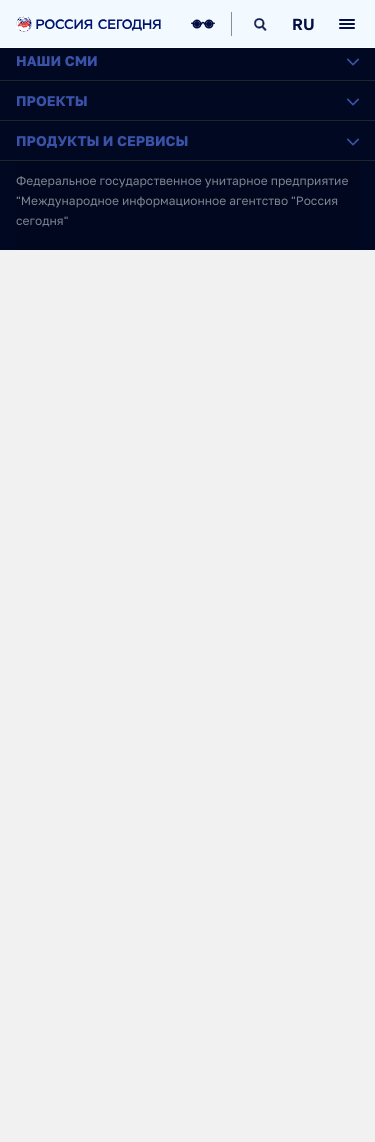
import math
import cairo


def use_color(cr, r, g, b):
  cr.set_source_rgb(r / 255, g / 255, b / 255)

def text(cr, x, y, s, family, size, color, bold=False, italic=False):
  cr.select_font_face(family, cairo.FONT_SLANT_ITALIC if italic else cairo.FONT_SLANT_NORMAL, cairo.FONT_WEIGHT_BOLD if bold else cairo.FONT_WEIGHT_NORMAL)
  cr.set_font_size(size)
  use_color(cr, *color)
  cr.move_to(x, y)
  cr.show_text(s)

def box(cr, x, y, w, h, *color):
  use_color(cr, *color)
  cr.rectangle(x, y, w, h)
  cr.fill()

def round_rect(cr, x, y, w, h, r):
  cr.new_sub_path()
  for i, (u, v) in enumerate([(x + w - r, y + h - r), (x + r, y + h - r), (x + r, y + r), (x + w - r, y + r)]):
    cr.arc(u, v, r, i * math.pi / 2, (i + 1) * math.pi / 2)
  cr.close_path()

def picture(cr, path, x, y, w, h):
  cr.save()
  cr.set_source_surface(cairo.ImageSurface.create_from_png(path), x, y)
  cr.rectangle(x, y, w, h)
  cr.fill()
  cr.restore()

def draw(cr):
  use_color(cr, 241, 241, 241)
  cr.paint()
  box(cr, 0, 0, 375, 47, 242, 250, 255)
  box(cr, 0, 47, 375, 1, 255, 255, 255)
  picture(cr, "img_01.png", 16, 16, 145, 16)
  picture(cr, "img_02.png", 191, 19, 24, 10)
  box(cr, 231, 12, 1, 24, 138, 143, 150)
  picture(cr, "img_03.png", 254, 18, 13, 13)
  use_color(cr, 2, 15, 64)
  round_rect(cr, 339, 19, 16, 2, 1)
  cr.fill()
  round_rect(cr, 339, 23, 16, 2, 1)
  cr.fill()
  round_rect(cr, 339, 27, 16, 2, 1)
  cr.fill()
  box(cr, 0, 48, 375, 202, 0, 8, 34)
  box(cr, 0, 80, 375, 1, 34, 36, 44)
  picture(cr, "img_04.png", 347, 58, 12, 8)
  box(cr, 0, 120, 375, 1, 34, 36, 44)
  picture(cr, "img_04.png", 347, 98, 12, 8)
  box(cr, 0, 160, 375, 1, 34, 36, 44)
  picture(cr, "img_04.png", 347, 138, 12, 8)
  box(cr, 16, 161, 343, 89, 0, 7, 31)
  text(cr, 292, 30, "RU", "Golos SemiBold", 16, (2, 15, 64))
  text(cr, 16, 66, "НАШИ СМИ", "Golos", 14, (58, 82, 167), bold=True)
  text(cr, 16, 106, "ПРОЕКТЫ", "Golos", 14, (58, 82, 167), bold=True)
  text(cr, 16, 146, "ПРОДУКТЫ И СЕРВИСЫ", "Golos", 14, (58, 82, 167), bold=True)
  text(cr, 16, 185, "Федеральное государственное унитарное предприятие", "Golos", 12, (128, 132, 145))
  text(cr, 16, 205, "\"Международное информационное агентство \"Россия", "Golos", 12, (128, 132, 145))
  text(cr, 16, 225, "сегодня\"", "Golos", 12, (128, 132, 145))


surface = cairo.ImageSurface(cairo.FORMAT_RGB24, 375, 1142)
cr = cairo.Context(surface)
options = cairo.FontOptions()
options.set_hint_metrics(cairo.HINT_METRICS_OFF)
options.set_hint_style(cairo.HINT_STYLE_NONE)
cr.set_font_options(options)
cr.set_miter_limit(4)
draw(cr)
surface.write_to_png("out.png")
